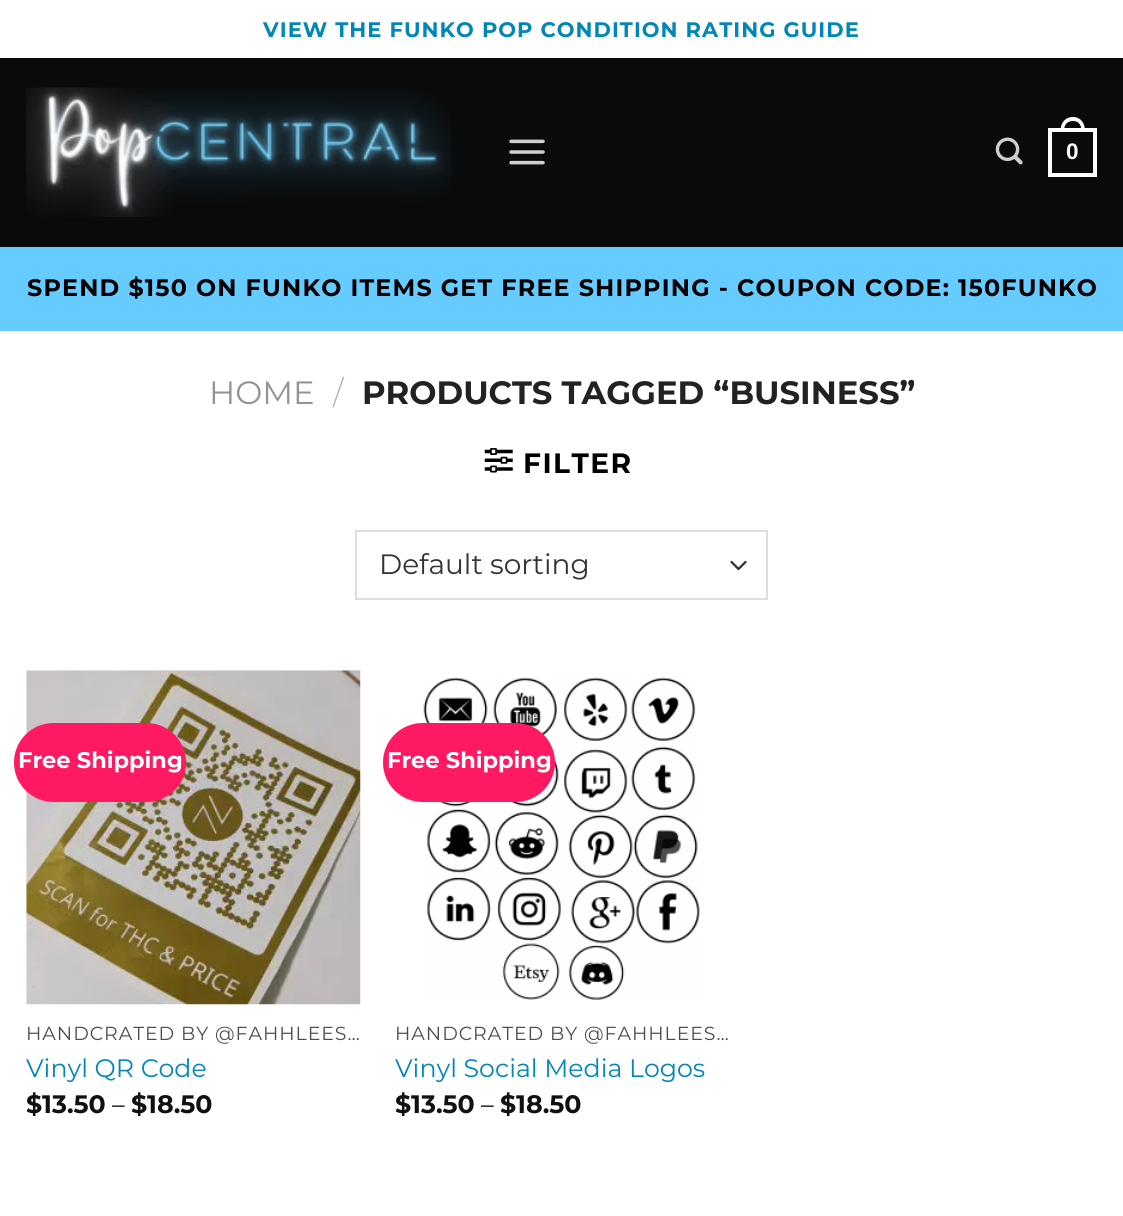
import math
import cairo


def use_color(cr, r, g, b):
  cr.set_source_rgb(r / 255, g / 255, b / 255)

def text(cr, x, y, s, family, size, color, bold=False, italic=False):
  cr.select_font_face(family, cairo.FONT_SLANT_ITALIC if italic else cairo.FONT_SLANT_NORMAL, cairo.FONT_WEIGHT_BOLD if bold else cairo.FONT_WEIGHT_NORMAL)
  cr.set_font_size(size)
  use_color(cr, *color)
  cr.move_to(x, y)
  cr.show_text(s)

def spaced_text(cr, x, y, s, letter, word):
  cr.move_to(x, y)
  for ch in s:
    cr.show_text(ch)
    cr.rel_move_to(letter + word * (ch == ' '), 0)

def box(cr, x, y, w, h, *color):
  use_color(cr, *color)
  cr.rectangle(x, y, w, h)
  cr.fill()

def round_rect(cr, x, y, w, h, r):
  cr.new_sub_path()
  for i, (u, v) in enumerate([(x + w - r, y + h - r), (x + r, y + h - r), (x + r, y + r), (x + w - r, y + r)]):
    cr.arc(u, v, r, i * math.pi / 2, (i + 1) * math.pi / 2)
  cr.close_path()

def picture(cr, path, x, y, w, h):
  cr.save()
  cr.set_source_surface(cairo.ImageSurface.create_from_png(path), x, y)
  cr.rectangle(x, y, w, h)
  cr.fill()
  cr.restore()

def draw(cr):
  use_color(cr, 255, 255, 255)
  cr.paint()
  box(cr, 0, 58, 1123, 189, 10, 10, 10)
  picture(cr, "img_01.png", 26, 87, 426, 130)
  picture(cr, "img_02.png", 509, 139, 36, 26)
  picture(cr, "img_03.png", 995, 137, 28, 28)
  cr.rectangle(1050, 130, 45, 45)
  use_color(cr, 255, 255, 255)
  cr.set_line_width(4)
  cr.stroke()
  cr.set_fill_rule(cairo.FILL_RULE_EVEN_ODD)
  cr.new_path()
  cr.move_to(1073, 117)
  cr.curve_to(1081, 117, 1085, 123.5, 1085, 131)
  cr.line_to(1060.5, 131)
  cr.curve_to(1060.5, 123.5, 1064.5, 117, 1073, 117)
  cr.close_path()
  cr.move_to(1073, 121)
  cr.curve_to(1079, 121, 1081.5, 125.5, 1081.5, 131)
  cr.line_to(1064, 131)
  cr.curve_to(1064, 125.5, 1066.5, 121, 1073, 121)
  cr.close_path()
  cr.fill()
  box(cr, 0, 247, 1123, 84, 102, 204, 255)
  picture(cr, "img_04.png", 484, 448, 29, 25)
  cr.new_path()
  cr.move_to(731.5, 562)
  cr.line_to(738.5, 569)
  cr.line_to(745.5, 562)
  use_color(cr, 51, 51, 51)
  cr.set_line_width(2.3)
  cr.set_line_cap(cairo.LINE_CAP_ROUND)
  cr.set_line_join(cairo.LINE_JOIN_ROUND)
  cr.stroke()
  cr.rectangle(356, 531, 411, 68)
  use_color(cr, 221, 221, 221)
  cr.set_line_width(2)
  cr.set_line_cap(cairo.LINE_CAP_BUTT)
  cr.set_line_join(cairo.LINE_JOIN_MITER)
  cr.stroke()
  picture(cr, "img_05.png", 26, 670, 335, 335)
  use_color(cr, 255, 25, 98)
  round_rect(cr, 14, 723, 172, 79, 39.5)
  cr.fill()
  picture(cr, "img_06.png", 423, 677, 277, 323)
  round_rect(cr, 383, 723, 172, 79, 39.5)
  cr.fill()
  cr.select_font_face("Montserrat", cairo.FONT_SLANT_NORMAL, cairo.FONT_WEIGHT_BOLD)
  cr.set_font_size(21)
  use_color(cr, 0, 135, 183)
  spaced_text(cr, 263, 37, "VIEW THE FUNKO POP CONDITION RATING GUIDE", 1.05, 0)
  text(cr, 1066, 159, "0", "Liberation Sans", 22.5, (255, 255, 255), bold=True)
  cr.select_font_face("Montserrat", cairo.FONT_SLANT_NORMAL, cairo.FONT_WEIGHT_BOLD)
  cr.set_font_size(23.8)
  use_color(cr, 0, 0, 0)
  spaced_text(cr, 27, 296, "SPEND $150 ON FUNKO ITEMS GET FREE SHIPPING - COUPON CODE: 150FUNKO", 1.2, 0)
  text(cr, 209, 404, "HOME", "Montserrat", 32.25, (148, 148, 148))
  text(cr, 333, 404, "/", "Montserrat Light", 32.25, (178, 178, 178))
  text(cr, 362, 404, "PRODUCTS TAGGED “BUSINESS”", "Montserrat", 32.25, (34, 34, 34), bold=True)
  cr.set_font_size(28)
  use_color(cr, 0, 0, 0)
  spaced_text(cr, 523, 473, "FILTER", 1.5, 0)
  text(cr, 379, 574, "Default sorting", "Montserrat", 28, (51, 51, 51))
  text(cr, 18, 768, "Free Shipping", "Montserrat", 22.5, (255, 255, 255), bold=True)
  cr.select_font_face("Montserrat")
  cr.set_font_size(18.9)
  use_color(cr, 77, 77, 77)
  spaced_text(cr, 26, 1040, "HANDCRATED BY @FAHHLEES…", 0.95, 0)
  text(cr, 26, 1077, "Vinyl QR Code", "Montserrat", 25.25, (0, 135, 183))
  text(cr, 26, 1113, "$13.50", "Montserrat", 25.25, (17, 17, 17), bold=True)
  text(cr, 112, 1113, "–", "Montserrat", 25.25, (0, 0, 0))
  text(cr, 131, 1113, "$18.50", "Montserrat", 25.25, (17, 17, 17), bold=True)
  text(cr, 387, 768, "Free Shipping", "Montserrat", 22.5, (255, 255, 255), bold=True)
  cr.select_font_face("Montserrat")
  cr.set_font_size(18.9)
  use_color(cr, 77, 77, 77)
  spaced_text(cr, 395, 1040, "HANDCRATED BY @FAHHLEES…", 0.95, 0)
  text(cr, 395, 1077, "Vinyl Social Media Logos", "Montserrat", 25.25, (0, 135, 183))
  text(cr, 395, 1113, "$13.50", "Montserrat", 25.25, (17, 17, 17), bold=True)
  text(cr, 481, 1113, "–", "Montserrat", 25.25, (0, 0, 0))
  text(cr, 500, 1113, "$18.50", "Montserrat", 25.25, (17, 17, 17), bold=True)


surface = cairo.ImageSurface(cairo.FORMAT_RGB24, 1123, 1216)
cr = cairo.Context(surface)
options = cairo.FontOptions()
options.set_hint_metrics(cairo.HINT_METRICS_OFF)
options.set_hint_style(cairo.HINT_STYLE_NONE)
cr.set_font_options(options)
cr.set_miter_limit(4)
draw(cr)
surface.write_to_png("out.png")
